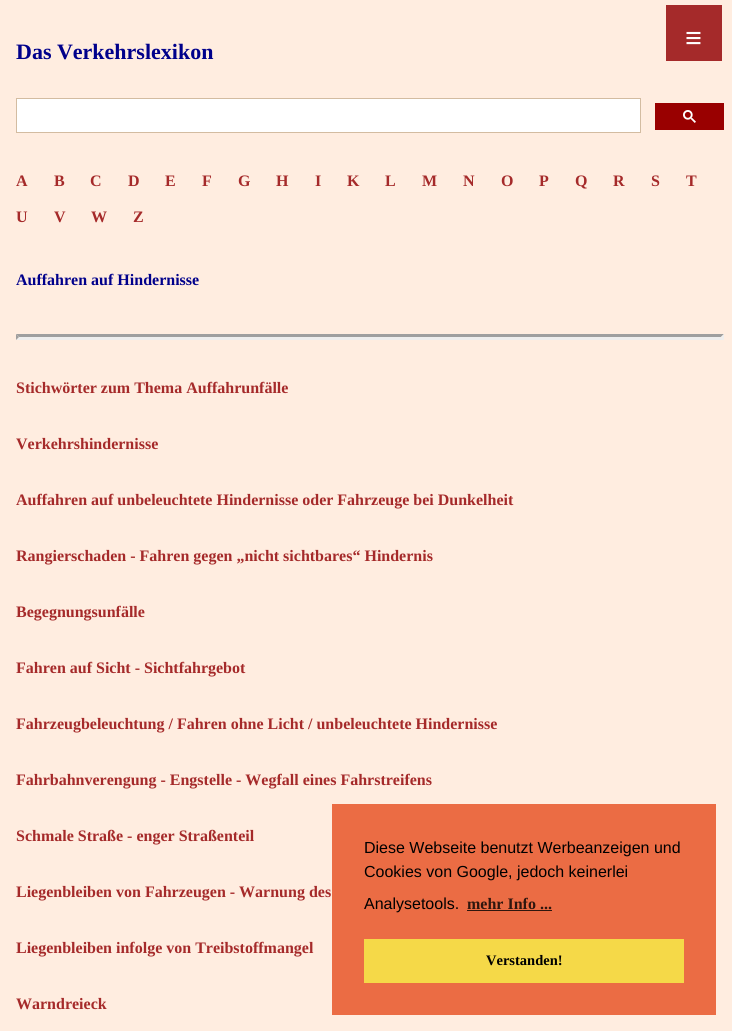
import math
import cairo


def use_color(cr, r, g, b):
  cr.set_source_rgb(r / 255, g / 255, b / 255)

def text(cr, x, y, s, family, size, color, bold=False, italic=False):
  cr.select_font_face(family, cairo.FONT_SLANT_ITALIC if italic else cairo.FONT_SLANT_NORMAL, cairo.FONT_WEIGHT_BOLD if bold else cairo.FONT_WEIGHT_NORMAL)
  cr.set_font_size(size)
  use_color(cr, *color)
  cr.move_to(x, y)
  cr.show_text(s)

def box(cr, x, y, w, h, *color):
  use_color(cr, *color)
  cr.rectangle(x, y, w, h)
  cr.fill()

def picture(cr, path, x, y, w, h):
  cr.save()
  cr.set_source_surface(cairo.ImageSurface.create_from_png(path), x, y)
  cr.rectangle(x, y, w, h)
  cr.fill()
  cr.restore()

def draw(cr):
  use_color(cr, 255, 237, 224)
  cr.paint()
  box(cr, 666, 5, 56, 56, 165, 42, 42)
  use_color(cr, 255, 255, 255)
  cr.rectangle(16.5, 98.5, 624, 34)
  cr.fill_preserve()
  use_color(cr, 211, 188, 161)
  cr.set_line_width(1)
  cr.stroke()
  box(cr, 655, 103, 69, 27, 153, 0, 0)
  picture(cr, "img_01.png", 683, 110, 13, 13)
  use_color(cr, 159, 159, 159)
  cr.new_path()
  cr.move_to(16, 334)
  cr.line_to(724, 334)
  cr.line_to(721, 337)
  cr.line_to(19, 337)
  cr.close_path()
  cr.fill()
  use_color(cr, 238, 238, 238)
  cr.new_path()
  cr.move_to(724, 334)
  cr.line_to(724, 340)
  cr.line_to(721, 337)
  cr.close_path()
  cr.fill()
  cr.new_path()
  cr.move_to(724, 340)
  cr.line_to(16, 340)
  cr.line_to(19, 337)
  cr.line_to(721, 337)
  cr.close_path()
  cr.fill()
  use_color(cr, 159, 159, 159)
  cr.new_path()
  cr.move_to(16, 340)
  cr.line_to(16, 334)
  cr.line_to(19, 337)
  cr.close_path()
  cr.fill()
  box(cr, 332, 804, 384, 211, 235, 108, 68)
  box(cr, 467, 910, 85, 1, 47, 22, 14)
  box(cr, 364, 939, 320, 44, 245, 217, 72)
  text(cr, 685, 48, "≡", "Liberation Serif", 30, (255, 255, 255), bold=True)
  text(cr, 16, 59, "Das Verkehrslexikon", "Liberation Serif", 22, (0, 0, 139), bold=True)
  text(cr, 16, 186, "A", "Liberation Serif", 16, (165, 42, 42), bold=True)
  text(cr, 54, 186, "B", "Liberation Serif", 16, (165, 42, 42), bold=True)
  text(cr, 90, 186, "C", "Liberation Serif", 16, (165, 42, 42), bold=True)
  text(cr, 128, 186, "D", "Liberation Serif", 16, (165, 42, 42), bold=True)
  text(cr, 165, 186, "E", "Liberation Serif", 16, (165, 42, 42), bold=True)
  text(cr, 202, 186, "F", "Liberation Serif", 16, (165, 42, 42), bold=True)
  text(cr, 238, 186, "G", "Liberation Serif", 16, (165, 42, 42), bold=True)
  text(cr, 276, 186, "H", "Liberation Serif", 16, (165, 42, 42), bold=True)
  text(cr, 315, 186, "I", "Liberation Serif", 16, (165, 42, 42), bold=True)
  text(cr, 347, 186, "K", "Liberation Serif", 16, (165, 42, 42), bold=True)
  text(cr, 385, 186, "L", "Liberation Serif", 16, (165, 42, 42), bold=True)
  text(cr, 422, 186, "M", "Liberation Serif", 16, (165, 42, 42), bold=True)
  text(cr, 463, 186, "N", "Liberation Serif", 16, (165, 42, 42), bold=True)
  text(cr, 501, 186, "O", "Liberation Serif", 16, (165, 42, 42), bold=True)
  text(cr, 539, 186, "P", "Liberation Serif", 16, (165, 42, 42), bold=True)
  text(cr, 575, 186, "Q", "Liberation Serif", 16, (165, 42, 42), bold=True)
  text(cr, 613, 186, "R", "Liberation Serif", 16, (165, 42, 42), bold=True)
  text(cr, 651, 186, "S", "Liberation Serif", 16, (165, 42, 42), bold=True)
  text(cr, 686, 186, "T", "Liberation Serif", 16, (165, 42, 42), bold=True)
  text(cr, 16, 222, "U", "Liberation Serif", 16, (165, 42, 42), bold=True)
  text(cr, 54, 222, "V", "Liberation Serif", 16, (165, 42, 42), bold=True)
  text(cr, 91, 222, "W", "Liberation Serif", 16, (165, 42, 42), bold=True)
  text(cr, 133, 222, "Z", "Liberation Serif", 16, (165, 42, 42), bold=True)
  text(cr, 16, 285, "Auffahren auf Hindernisse", "Liberation Serif", 16, (0, 0, 139), bold=True)
  text(cr, 16, 393, "Stichwörter zum Thema Auffahrunfälle", "Liberation Serif", 16, (165, 42, 42), bold=True)
  text(cr, 16, 449, "Verkehrshindernisse", "Liberation Serif", 16, (165, 42, 42), bold=True)
  text(cr, 16, 505, "Auffahren auf unbeleuchtete Hindernisse oder Fahrzeuge bei Dunkelheit", "Liberation Serif", 16, (165, 42, 42), bold=True)
  text(cr, 16, 561, "Rangierschaden - Fahren gegen „nicht sichtbares“ Hindernis", "Liberation Serif", 16, (165, 42, 42), bold=True)
  text(cr, 16, 617, "Begegnungsunfälle", "Liberation Serif", 16, (165, 42, 42), bold=True)
  text(cr, 16, 673, "Fahren auf Sicht - Sichtfahrgebot", "Liberation Serif", 16, (165, 42, 42), bold=True)
  text(cr, 16, 729, "Fahrzeugbeleuchtung / Fahren ohne Licht / unbeleuchtete Hindernisse", "Liberation Serif", 16, (165, 42, 42), bold=True)
  text(cr, 16, 785, "Fahrbahnverengung - Engstelle - Wegfall eines Fahrstreifens", "Liberation Serif", 16, (165, 42, 42), bold=True)
  text(cr, 16, 841, "Schmale Straße - enger Straßenteil", "Liberation Serif", 16, (165, 42, 42), bold=True)
  text(cr, 16, 897, "Liegenbleiben von Fahrzeugen - Warnung des", "Liberation Serif", 16, (165, 42, 42), bold=True)
  text(cr, 16, 953, "Liegenbleiben infolge von Treibstoffmangel", "Liberation Serif", 16, (165, 42, 42), bold=True)
  text(cr, 16, 1009, "Warndreieck", "Liberation Serif", 16, (165, 42, 42), bold=True)
  text(cr, 364, 853, "Diese Webseite benutzt Werbeanzeigen und", "Liberation Sans", 16, (0, 0, 0))
  text(cr, 364, 877, "Cookies von Google, jedoch keinerlei", "Liberation Sans", 16, (0, 0, 0))
  text(cr, 364, 909, "Analysetools.", "Liberation Sans", 16, (0, 0, 0))
  text(cr, 467, 909, "mehr Info ...", "Liberation Serif", 16, (47, 22, 14), bold=True)
  text(cr, 486, 965, "Verstanden!", "Liberation Serif", 14.5, (0, 0, 0), bold=True)


surface = cairo.ImageSurface(cairo.FORMAT_RGB24, 732, 1031)
cr = cairo.Context(surface)
options = cairo.FontOptions()
options.set_hint_metrics(cairo.HINT_METRICS_OFF)
options.set_hint_style(cairo.HINT_STYLE_NONE)
cr.set_font_options(options)
cr.set_miter_limit(4)
draw(cr)
surface.write_to_png("out.png")
